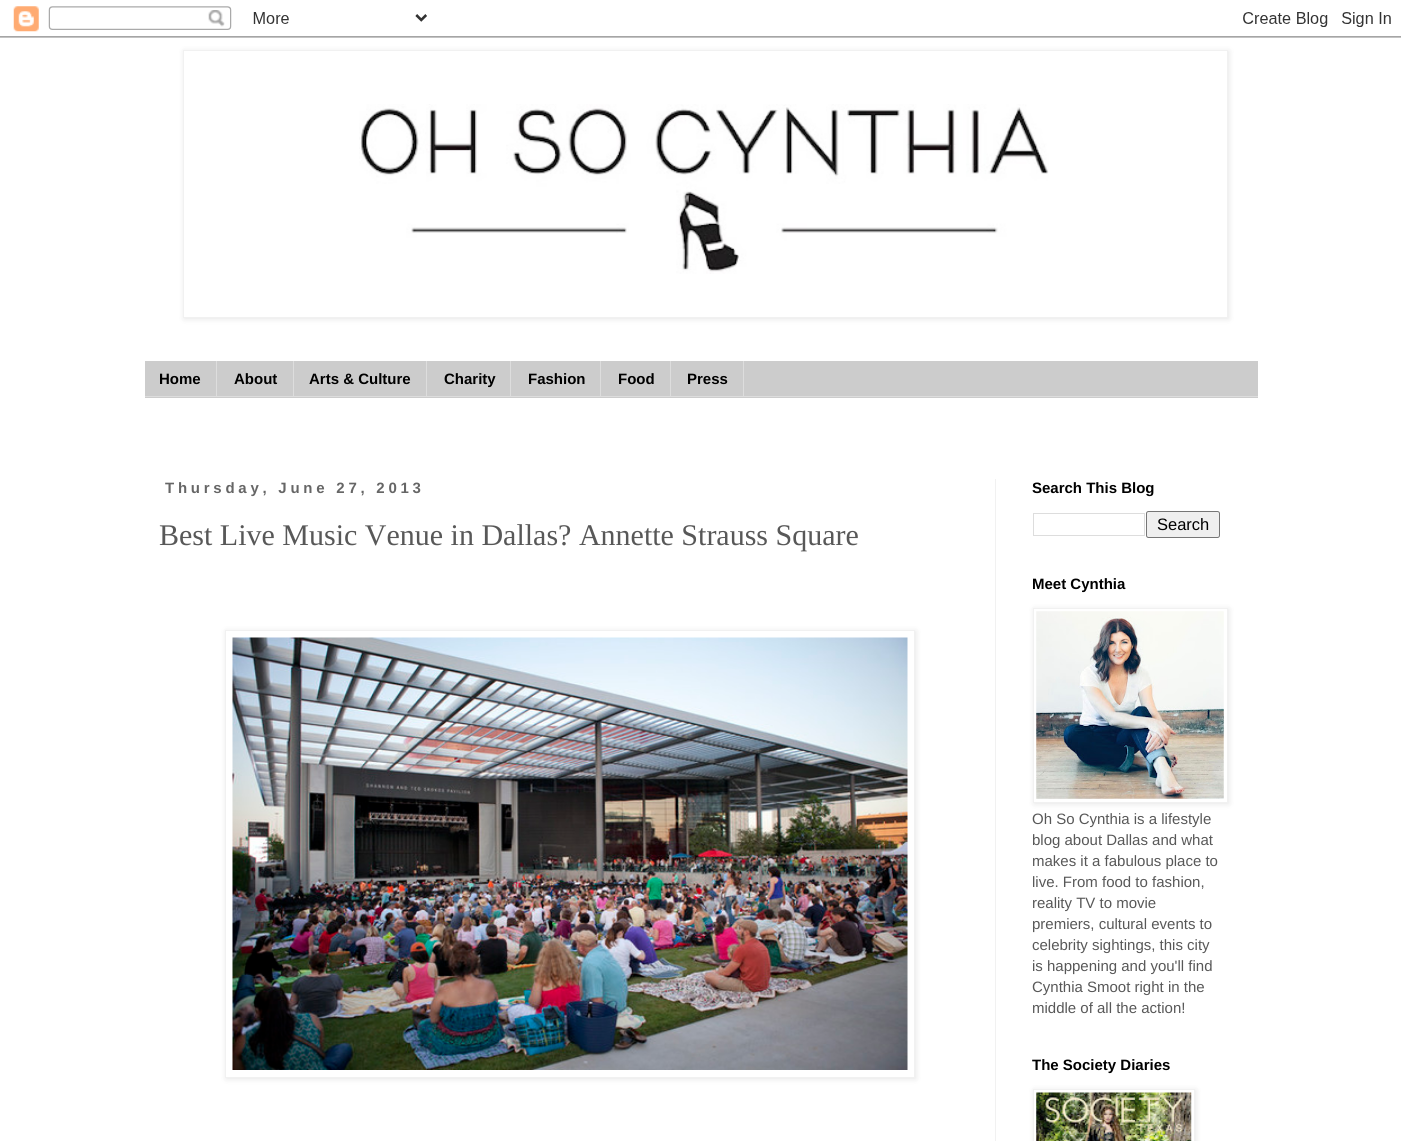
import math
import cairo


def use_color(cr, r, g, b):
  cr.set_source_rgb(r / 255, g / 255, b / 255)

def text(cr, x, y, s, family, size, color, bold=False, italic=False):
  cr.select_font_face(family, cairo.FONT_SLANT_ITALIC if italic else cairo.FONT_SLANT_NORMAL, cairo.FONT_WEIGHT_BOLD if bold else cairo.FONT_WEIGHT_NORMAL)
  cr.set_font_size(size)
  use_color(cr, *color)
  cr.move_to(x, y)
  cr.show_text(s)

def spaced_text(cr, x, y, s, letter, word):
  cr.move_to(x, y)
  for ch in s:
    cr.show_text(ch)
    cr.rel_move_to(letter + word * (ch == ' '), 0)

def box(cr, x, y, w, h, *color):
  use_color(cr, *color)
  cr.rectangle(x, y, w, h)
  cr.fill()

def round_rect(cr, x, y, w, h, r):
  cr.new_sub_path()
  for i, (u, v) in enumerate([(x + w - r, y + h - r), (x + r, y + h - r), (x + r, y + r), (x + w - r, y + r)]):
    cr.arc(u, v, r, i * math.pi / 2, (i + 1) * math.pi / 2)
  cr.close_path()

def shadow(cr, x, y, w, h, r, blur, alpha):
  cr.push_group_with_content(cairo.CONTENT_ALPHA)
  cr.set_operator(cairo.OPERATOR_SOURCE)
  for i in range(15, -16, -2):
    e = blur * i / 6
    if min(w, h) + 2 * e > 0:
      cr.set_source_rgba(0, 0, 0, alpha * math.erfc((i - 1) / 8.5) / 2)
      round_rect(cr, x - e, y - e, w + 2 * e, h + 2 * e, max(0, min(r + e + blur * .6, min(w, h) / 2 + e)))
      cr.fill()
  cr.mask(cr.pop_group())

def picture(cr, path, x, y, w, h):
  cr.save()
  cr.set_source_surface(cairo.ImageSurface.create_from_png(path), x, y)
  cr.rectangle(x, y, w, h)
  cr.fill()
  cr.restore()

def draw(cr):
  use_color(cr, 255, 255, 255)
  cr.paint()
  picture(cr, "img_01.png", 0, 6, 1401, 32)
  use_color(cr, 0, 0, 0)
  shadow(cr, 184, 51, 1045, 268, 0, 3, 0.1)
  use_color(cr, 255, 255, 255)
  cr.rectangle(183.5, 50.5, 1044, 267)
  cr.fill_preserve()
  use_color(cr, 241, 241, 241)
  cr.set_line_width(1)
  cr.stroke()
  picture(cr, "img_02.png", 359, 104, 690, 170)
  box(cr, 145, 361, 1113, 37, 204, 204, 204)
  box(cr, 145, 396, 1113, 1, 221, 221, 221)
  box(cr, 216, 361, 1, 35, 221, 221, 221)
  box(cr, 293, 361, 1, 35, 221, 221, 221)
  box(cr, 426, 361, 1, 35, 221, 221, 221)
  box(cr, 510, 361, 1, 35, 221, 221, 221)
  box(cr, 600, 361, 1, 35, 221, 221, 221)
  box(cr, 670, 361, 1, 35, 221, 221, 221)
  box(cr, 743, 361, 1, 35, 221, 221, 221)
  box(cr, 995, 479, 1, 662, 241, 241, 241)
  use_color(cr, 0, 0, 0)
  shadow(cr, 226, 631, 690, 448, 0, 3, 0.1)
  use_color(cr, 255, 255, 255)
  cr.rectangle(225.5, 630.5, 689, 447)
  cr.fill_preserve()
  use_color(cr, 241, 241, 241)
  cr.stroke()
  picture(cr, "img_03.png", 232, 637, 676, 433)
  cr.rectangle(1033.5, 513.5, 111, 22)
  use_color(cr, 221, 221, 221)
  cr.stroke()
  use_color(cr, 239, 239, 239)
  round_rect(cr, 1146.5, 511.5, 73, 26, 2)
  cr.fill_preserve()
  use_color(cr, 118, 118, 118)
  cr.stroke()
  use_color(cr, 0, 0, 0)
  shadow(cr, 1034, 609, 195, 195, 0, 3, 0.1)
  use_color(cr, 255, 255, 255)
  cr.rectangle(1033.5, 608.5, 194, 194)
  cr.fill_preserve()
  use_color(cr, 241, 241, 241)
  cr.stroke()
  picture(cr, "img_04.png", 1036, 611, 188, 188)
  cr.save()
  cr.set_fill_rule(cairo.FILL_RULE_EVEN_ODD)
  cr.new_path()
  cr.move_to(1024, 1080)
  cr.line_to(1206, 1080)
  cr.line_to(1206, 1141)
  cr.line_to(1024, 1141)
  cr.close_path()
  cr.move_to(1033, 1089)
  cr.line_to(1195, 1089)
  cr.line_to(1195, 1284)
  cr.line_to(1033, 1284)
  cr.close_path()
  cr.clip()
  use_color(cr, 0, 0, 0)
  shadow(cr, 1034, 1090, 162, 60, 0, 3, 0.1)
  cr.restore()
  cr.rectangle(1033.5, 1089.5, 161, 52)
  cr.stroke()
  picture(cr, "img_05.png", 1036, 1092, 156, 49)
  text(cr, 159, 384, "Home", "Liberation Sans", 15, (0, 0, 0), bold=True)
  text(cr, 234, 384, "About", "Liberation Sans", 15, (0, 0, 0), bold=True)
  text(cr, 309, 384, "Arts & Culture", "Liberation Sans", 15, (0, 0, 0), bold=True)
  text(cr, 444, 384, "Charity", "Liberation Sans", 15, (0, 0, 0), bold=True)
  text(cr, 528, 384, "Fashion", "Liberation Sans", 15, (0, 0, 0), bold=True)
  text(cr, 618, 384, "Food", "Liberation Sans", 15, (0, 0, 0), bold=True)
  text(cr, 687, 384, "Press", "Liberation Sans", 15, (0, 0, 0), bold=True)
  use_color(cr, 102, 102, 102)
  spaced_text(cr, 165, 493, "Thursday, June 27, 2013", 3.75, 0)
  text(cr, 159, 545, "Best Live Music Venue in Dallas? Annette Strauss Square", "Tinos", 30, (88, 88, 88))
  text(cr, 1032, 493, "Search This Blog", "Liberation Sans", 15, (0, 0, 0), bold=True)
  text(cr, 1157, 530, "Search", "Liberation Sans", 16.5, (0, 0, 0))
  text(cr, 1032, 589, "Meet Cynthia", "Liberation Sans", 15, (0, 0, 0), bold=True)
  text(cr, 1032, 824, "Oh So Cynthia is a lifestyle", "Liberation Sans", 15, (88, 88, 88))
  text(cr, 1032, 845, "blog about Dallas and what", "Liberation Sans", 15, (88, 88, 88))
  text(cr, 1032, 866, "makes it a fabulous place to", "Liberation Sans", 15, (88, 88, 88))
  text(cr, 1032, 887, "live. From food to fashion,", "Liberation Sans", 15, (88, 88, 88))
  text(cr, 1032, 908, "reality TV to movie", "Liberation Sans", 15, (88, 88, 88))
  text(cr, 1032, 929, "premiers, cultural events to", "Liberation Sans", 15, (88, 88, 88))
  text(cr, 1032, 950, "celebrity sightings, this city", "Liberation Sans", 15, (88, 88, 88))
  text(cr, 1032, 971, "is happening and you'll find", "Liberation Sans", 15, (88, 88, 88))
  text(cr, 1032, 992, "Cynthia Smoot right in the", "Liberation Sans", 15, (88, 88, 88))
  text(cr, 1032, 1013, "middle of all the action!", "Liberation Sans", 15, (88, 88, 88))
  text(cr, 1032, 1070, "The Society Diaries", "Liberation Sans", 15, (0, 0, 0), bold=True)


surface = cairo.ImageSurface(cairo.FORMAT_RGB24, 1401, 1141)
cr = cairo.Context(surface)
options = cairo.FontOptions()
options.set_hint_metrics(cairo.HINT_METRICS_OFF)
options.set_hint_style(cairo.HINT_STYLE_NONE)
cr.set_font_options(options)
cr.set_miter_limit(4)
draw(cr)
surface.write_to_png("out.png")
